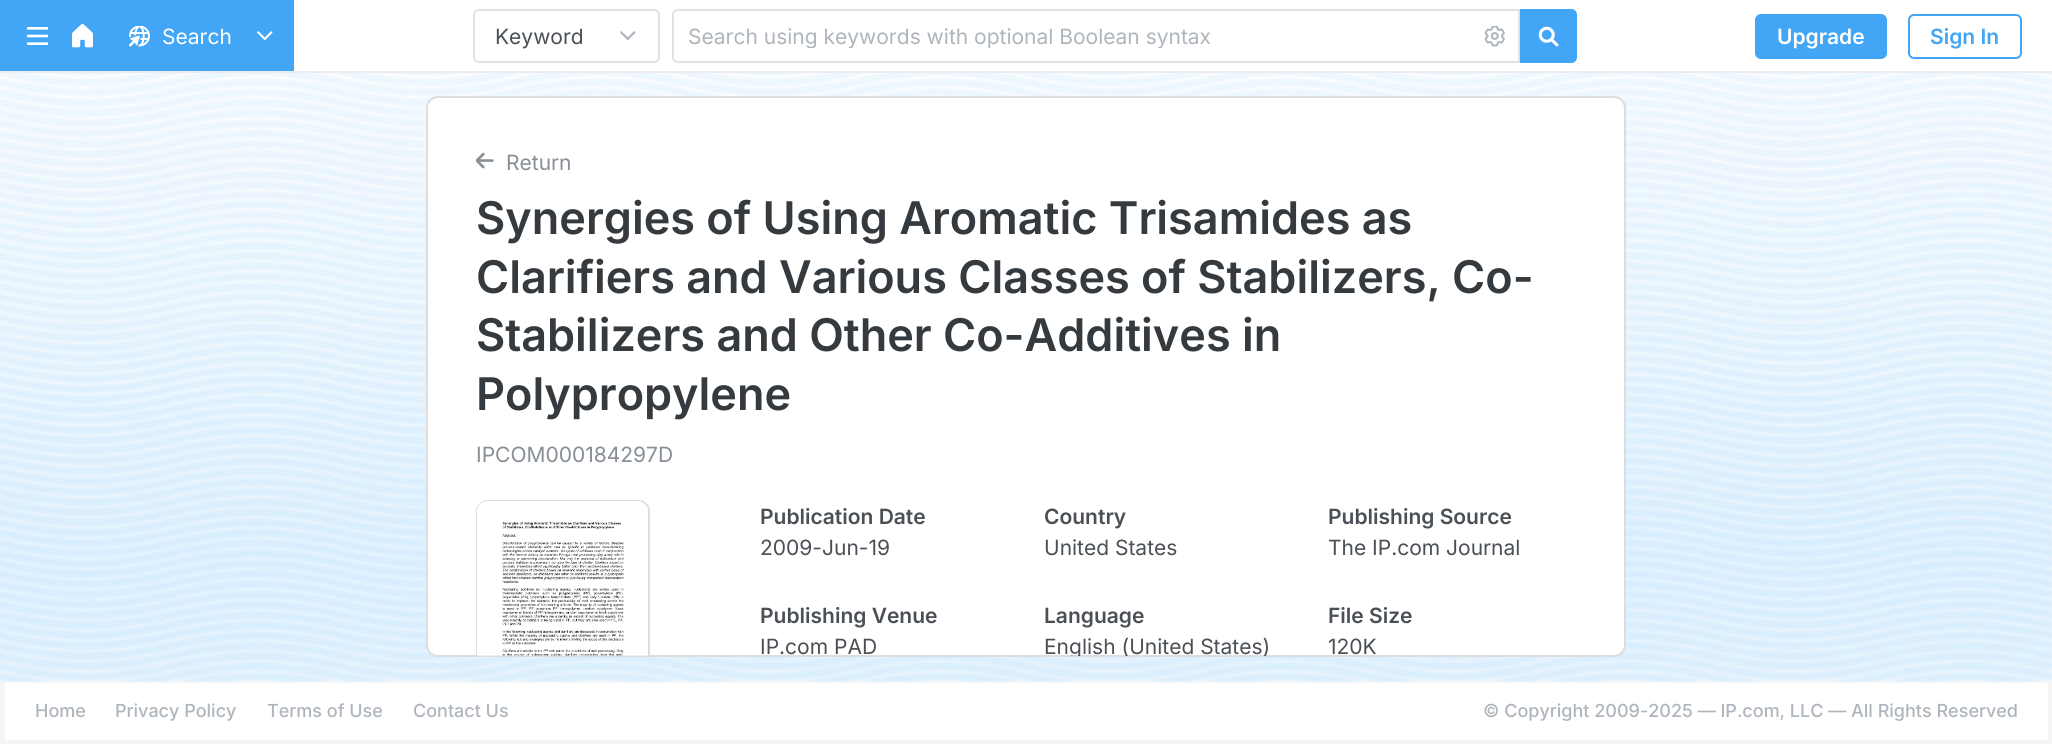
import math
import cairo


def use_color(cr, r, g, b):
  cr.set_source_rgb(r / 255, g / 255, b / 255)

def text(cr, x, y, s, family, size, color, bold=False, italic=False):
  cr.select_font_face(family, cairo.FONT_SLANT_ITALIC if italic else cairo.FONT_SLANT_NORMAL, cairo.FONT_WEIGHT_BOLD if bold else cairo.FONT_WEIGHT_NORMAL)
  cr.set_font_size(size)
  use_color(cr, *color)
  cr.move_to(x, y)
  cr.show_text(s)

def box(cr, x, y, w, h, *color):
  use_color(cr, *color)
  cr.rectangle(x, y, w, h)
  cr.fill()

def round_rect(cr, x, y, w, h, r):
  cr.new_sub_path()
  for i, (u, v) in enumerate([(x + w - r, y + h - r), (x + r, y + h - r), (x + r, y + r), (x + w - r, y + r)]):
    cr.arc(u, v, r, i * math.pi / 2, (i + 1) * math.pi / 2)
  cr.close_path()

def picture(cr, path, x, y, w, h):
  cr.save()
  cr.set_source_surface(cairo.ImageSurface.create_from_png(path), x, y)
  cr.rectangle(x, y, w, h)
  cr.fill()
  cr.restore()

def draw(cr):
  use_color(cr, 255, 255, 255)
  cr.paint()
  box(cr, 0, 71, 2052, 2, 234, 236, 239)
  box(cr, 0, 0, 294, 71, 66, 165, 245)
  picture(cr, "img_01.png", 27, 27, 21, 18)
  picture(cr, "img_02.png", 72, 24, 21, 24)
  picture(cr, "img_03.png", 129, 26, 21, 21)
  picture(cr, "img_04.png", 257, 31, 16, 9)
  round_rect(cr, 474, 10, 185, 52, 5)
  use_color(cr, 223, 226, 230)
  cr.stroke()
  picture(cr, "img_05.png", 620, 31, 16, 9)
  cr.new_path()
  cr.move_to(678, 10)
  cr.line_to(1519, 10)
  cr.line_to(1519, 62)
  cr.line_to(678, 62)
  cr.curve_to(675, 62, 673, 60, 673, 57)
  cr.line_to(673, 15)
  cr.curve_to(673, 12, 675, 10, 678, 10)
  cr.close_path()
  cr.stroke()
  picture(cr, "img_06.png", 1484, 26, 21, 21)
  use_color(cr, 66, 165, 245)
  cr.new_path()
  cr.move_to(1521, 10)
  cr.line_to(1571, 10)
  cr.curve_to(1574, 10, 1576, 12, 1576, 15)
  cr.line_to(1576, 57)
  cr.curve_to(1576, 60, 1574, 62, 1571, 62)
  cr.line_to(1521, 62)
  cr.close_path()
  cr.fill_preserve()
  cr.stroke()
  picture(cr, "img_07.png", 1538, 26, 21, 21)
  round_rect(cr, 1756, 15, 130, 43, 5)
  cr.fill_preserve()
  cr.stroke()
  round_rect(cr, 1909, 15, 112, 43, 5)
  cr.stroke()
  picture(cr, "img_08.png", 0, 73, 2052, 608)
  use_color(cr, 255, 255, 255)
  round_rect(cr, 427, 97, 1198, 559, 11)
  cr.fill_preserve()
  use_color(cr, 221, 221, 221)
  cr.stroke()
  picture(cr, "img_09.png", 476, 152, 18, 17)
  cr.new_path()
  cr.move_to(488, 500)
  cr.curve_to(481, 500, 476, 505, 476, 512)
  cr.line_to(476, 656)
  cr.line_to(478, 656)
  cr.line_to(478, 512)
  cr.curve_to(478, 506, 482, 502, 488, 502)
  cr.line_to(638, 502)
  cr.curve_to(644, 502, 648, 506, 648, 512)
  cr.line_to(648, 656)
  cr.line_to(650, 656)
  cr.line_to(650, 512)
  cr.curve_to(650, 505, 645, 500, 638, 500)
  cr.close_path()
  cr.fill()
  picture(cr, "img_10.png", 477, 501, 171, 155)
  box(cr, 0, 681, 2052, 2, 245, 245, 245)
  box(cr, 2048, 681, 4, 63, 245, 245, 245)
  box(cr, 0, 740, 2052, 4, 245, 245, 245)
  box(cr, 0, 681, 5, 63, 245, 245, 245)
  text(cr, 162, 44, "Search", "Inter", 21, (255, 255, 255))
  text(cr, 495, 44, "Keyword", "Inter", 21, (74, 80, 86))
  cr.save()
  cr.rectangle(689, 23, 786, 25)
  cr.clip()
  text(cr, 688, 44, "Search using keywords with optional Boolean syntax", "Inter", 21, (174, 181, 188))
  cr.restore()
  text(cr, 1777, 44, "Upgrade", "Inter SemiBold", 21, (255, 255, 255))
  text(cr, 1930, 44, "Sign In", "Inter SemiBold", 21, (66, 165, 245))
  text(cr, 506, 170, "Return", "Inter", 21, (135, 142, 149))
  text(cr, 476, 234, "Synergies of Using Aromatic Trisamides as", "Inter SemiBold", 45, (53, 58, 63))
  text(cr, 476, 293, "Clarifiers and Various Classes of Stabilizers, Co-", "Inter SemiBold", 45, (53, 58, 63))
  text(cr, 476, 351, "Stabilizers and Other Co-Additives in", "Inter SemiBold", 45, (53, 58, 63))
  text(cr, 476, 410, "Polypropylene", "Inter SemiBold", 45, (53, 58, 63))
  text(cr, 476, 462, "IPCOM000184297D", "Inter", 21, (135, 142, 149))
  text(cr, 760, 524, "Publication Date", "Inter SemiBold", 21, (74, 80, 86))
  text(cr, 760, 555, "2009-Jun-19", "Inter", 21, (74, 80, 86))
  text(cr, 1044, 524, "Country", "Inter SemiBold", 21, (74, 80, 86))
  text(cr, 1044, 555, "United States", "Inter", 21, (74, 80, 86))
  text(cr, 1328, 524, "Publishing Source", "Inter SemiBold", 21, (74, 80, 86))
  text(cr, 1328, 555, "The IP.com Journal", "Inter", 21, (74, 80, 86))
  text(cr, 760, 623, "Publishing Venue", "Inter SemiBold", 21, (74, 80, 86))
  text(cr, 760, 654, "IP.com PAD", "Inter", 21, (74, 80, 86))
  text(cr, 1044, 623, "Language", "Inter SemiBold", 21, (74, 80, 86))
  cr.save()
  round_rect(cr, 428, 98, 1197, 558, 11)
  cr.clip()
  text(cr, 1044, 654, "English (United States)", "Inter", 21, (74, 80, 86))
  cr.restore()
  text(cr, 1328, 623, "File Size", "Inter SemiBold", 21, (74, 80, 86))
  text(cr, 1328, 654, "120K", "Inter", 21, (74, 80, 86))
  text(cr, 35, 717, "Home", "Inter Medium", 18, (174, 181, 188))
  text(cr, 115, 717, "Privacy Policy", "Inter Medium", 18, (174, 181, 188))
  text(cr, 267, 717, "Terms of Use", "Inter Medium", 18, (174, 181, 188))
  text(cr, 413, 717, "Contact Us", "Inter Medium", 18, (174, 181, 188))
  text(cr, 1483, 717, "© Copyright 2009-2025 — IP.com, LLC — All Rights Reserved", "Inter Medium", 18, (174, 181, 188))


surface = cairo.ImageSurface(cairo.FORMAT_RGB24, 2052, 744)
cr = cairo.Context(surface)
options = cairo.FontOptions()
options.set_hint_metrics(cairo.HINT_METRICS_OFF)
options.set_hint_style(cairo.HINT_STYLE_NONE)
cr.set_font_options(options)
cr.set_miter_limit(4)
draw(cr)
surface.write_to_png("out.png")
